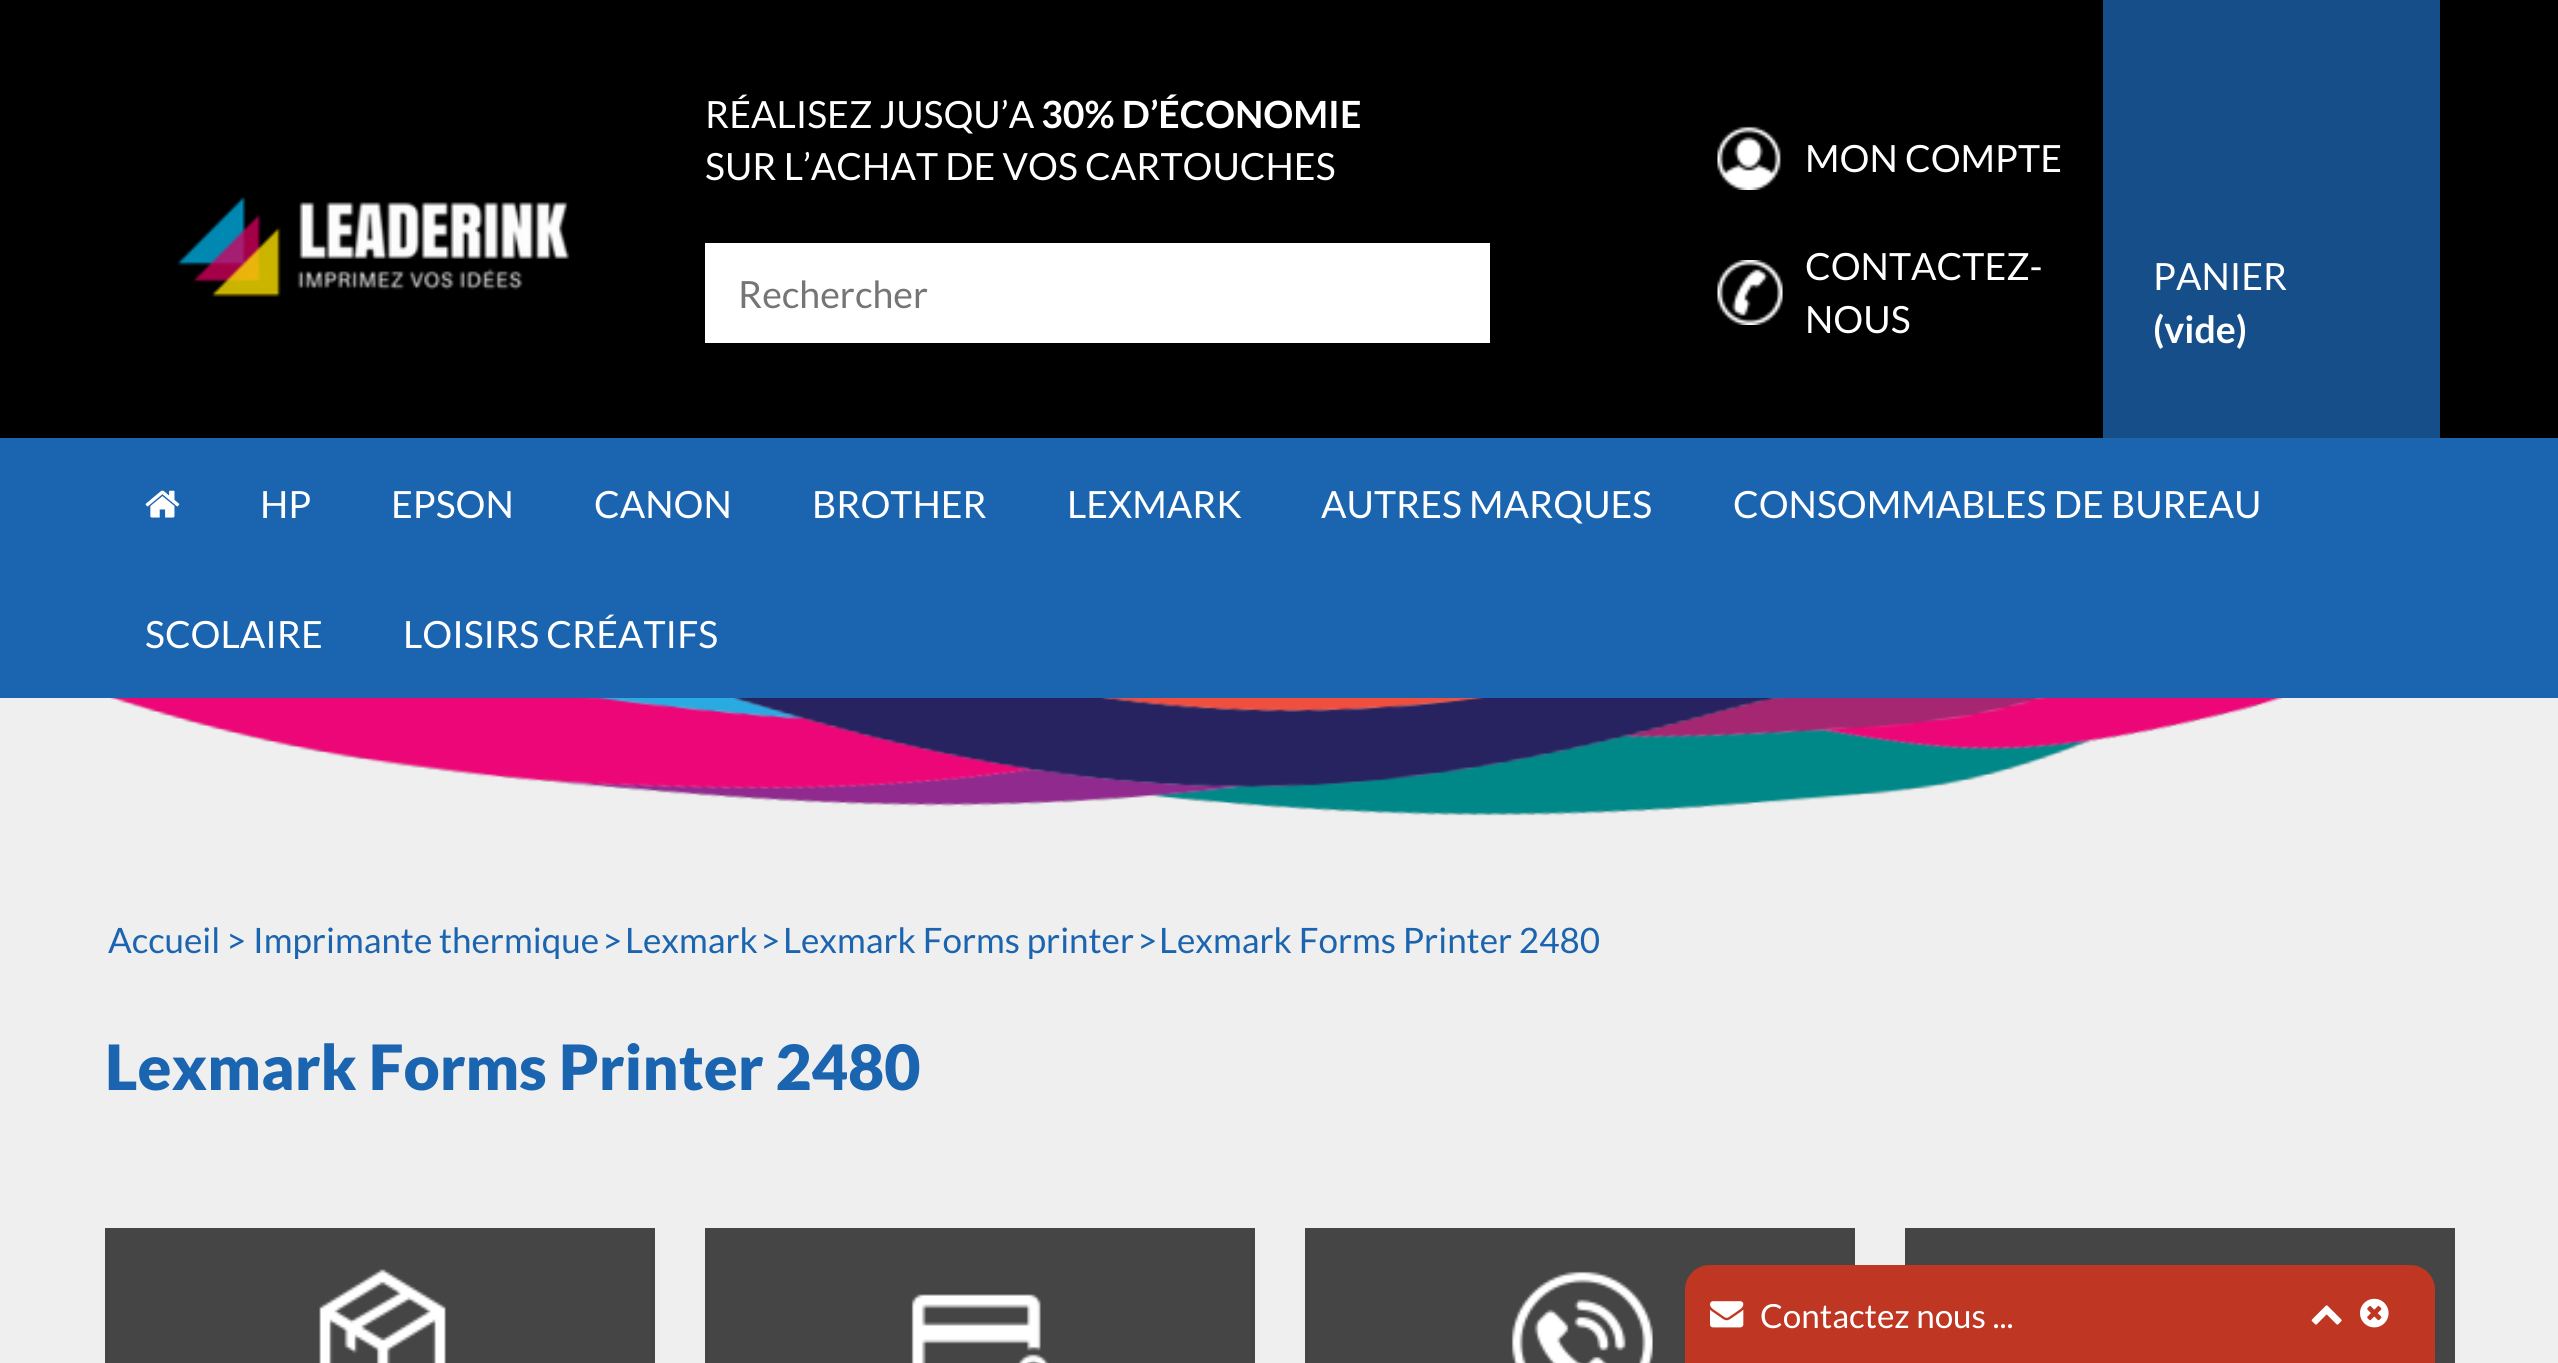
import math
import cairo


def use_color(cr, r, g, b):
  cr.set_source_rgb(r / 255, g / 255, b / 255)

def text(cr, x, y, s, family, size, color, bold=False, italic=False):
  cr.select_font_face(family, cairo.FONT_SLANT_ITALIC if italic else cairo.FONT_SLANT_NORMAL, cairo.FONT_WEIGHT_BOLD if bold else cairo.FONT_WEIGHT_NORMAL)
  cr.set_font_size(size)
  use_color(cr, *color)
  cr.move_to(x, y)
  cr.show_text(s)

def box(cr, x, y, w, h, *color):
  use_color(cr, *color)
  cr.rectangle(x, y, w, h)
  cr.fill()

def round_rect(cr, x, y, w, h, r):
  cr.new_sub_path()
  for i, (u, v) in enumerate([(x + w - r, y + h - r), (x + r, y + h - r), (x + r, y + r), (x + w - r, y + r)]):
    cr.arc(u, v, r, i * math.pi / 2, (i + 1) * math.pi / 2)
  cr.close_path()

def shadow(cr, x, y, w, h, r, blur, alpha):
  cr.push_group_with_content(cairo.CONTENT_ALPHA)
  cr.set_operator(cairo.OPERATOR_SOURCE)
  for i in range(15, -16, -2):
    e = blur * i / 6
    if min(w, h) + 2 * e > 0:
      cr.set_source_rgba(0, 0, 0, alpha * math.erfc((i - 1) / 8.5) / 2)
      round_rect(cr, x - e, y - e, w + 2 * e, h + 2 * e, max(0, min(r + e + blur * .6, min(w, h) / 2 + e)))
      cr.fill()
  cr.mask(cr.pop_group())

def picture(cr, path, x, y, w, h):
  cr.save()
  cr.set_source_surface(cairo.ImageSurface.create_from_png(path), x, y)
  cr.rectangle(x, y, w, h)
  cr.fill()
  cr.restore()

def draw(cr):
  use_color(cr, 239, 239, 239)
  cr.paint()
  box(cr, 0, 0, 2558, 438, 0, 0, 0)
  picture(cr, "img_01.png", 1717, 126, 64, 64)
  picture(cr, "img_02.png", 177, 196, 393, 101)
  box(cr, 705, 243, 785, 100, 255, 255, 255)
  picture(cr, "img_03.png", 1717, 260, 66, 65)
  box(cr, 2103, 0, 337, 438, 21, 78, 137)
  box(cr, 0, 438, 2558, 260, 27, 100, 175)
  picture(cr, "img_04.png", 145, 490, 35, 28)
  picture(cr, "img_05.png", 110, 698, 2173, 118)
  box(cr, 105, 1228, 550, 135, 69, 69, 69)
  picture(cr, "img_06.png", 319, 1269, 127, 94)
  box(cr, 705, 1228, 550, 135, 69, 69, 69)
  picture(cr, "img_07.png", 911, 1294, 138, 69)
  box(cr, 1305, 1228, 550, 135, 69, 69, 69)
  picture(cr, "img_08.png", 1511, 1271, 142, 92)
  box(cr, 1905, 1228, 550, 135, 69, 69, 69)
  use_color(cr, 50, 50, 50)
  shadow(cr, 1688, 1270, 750, 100, 25, 2.5, 0.1)
  use_color(cr, 191, 55, 35)
  cr.new_path()
  cr.move_to(1710, 1265)
  cr.line_to(2410, 1265)
  cr.curve_to(2424, 1265, 2435, 1276, 2435, 1290)
  cr.line_to(2435, 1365)
  cr.line_to(1685, 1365)
  cr.line_to(1685, 1290)
  cr.curve_to(1685, 1276, 1696, 1265, 1710, 1265)
  cr.close_path()
  cr.fill()
  picture(cr, "img_09.png", 1710, 1301, 34, 27)
  picture(cr, "img_10.png", 2311, 1305, 31, 20)
  picture(cr, "img_11.png", 2360, 1298, 29, 30)
  text(cr, 705, 128, "RÉALISEZ JUSQU’A", "Lato", 37.5, (255, 255, 255))
  text(cr, 1041, 128, "30% D’ÉCONOMIE", "Lato", 37.5, (255, 255, 255), bold=True)
  text(cr, 705, 180, "SUR L’ACHAT DE VOS CARTOUCHES", "Lato", 37.5, (255, 255, 255))
  text(cr, 1805, 172, "MON COMPTE", "Lato", 37.5, (255, 255, 255))
  text(cr, 738, 308, "Rechercher", "Lato", 37.5, (117, 117, 117))
  text(cr, 1805, 280, "CONTACTEZ-", "Lato", 37.5, (255, 255, 255))
  text(cr, 1805, 333, "NOUS", "Lato", 37.5, (255, 255, 255))
  text(cr, 2153, 290, "PANIER", "Lato", 37.5, (255, 255, 255))
  text(cr, 2153, 343, "(vide)", "Lato", 37.5, (255, 255, 255), bold=True)
  text(cr, 260, 518, "HP", "Lato", 37.5, (255, 255, 255))
  text(cr, 391, 518, "EPSON", "Lato", 37.5, (255, 255, 255))
  text(cr, 594, 518, "CANON", "Lato", 37.5, (255, 255, 255))
  text(cr, 812, 518, "BROTHER", "Lato", 37.5, (255, 255, 255))
  text(cr, 1067, 518, "LEXMARK", "Lato", 37.5, (255, 255, 255))
  text(cr, 1321, 518, "AUTRES MARQUES", "Lato", 37.5, (255, 255, 255))
  text(cr, 1733, 518, "CONSOMMABLES DE BUREAU", "Lato", 37.5, (255, 255, 255))
  text(cr, 145, 648, "SCOLAIRE", "Lato", 37.5, (255, 255, 255))
  text(cr, 403, 648, "LOISIRS CRÉATIFS", "Lato", 37.5, (255, 255, 255))
  text(cr, 108, 953, "Accueil", "Lato", 35, (27, 100, 175))
  text(cr, 226, 953, "> Imprimante thermique", "Lato", 35, (27, 100, 175))
  text(cr, 602, 953, ">", "Lato", 35, (27, 100, 175))
  text(cr, 625, 953, "Lexmark", "Lato", 35, (27, 100, 175))
  text(cr, 760, 953, ">", "Lato", 35, (27, 100, 175))
  text(cr, 783, 953, "Lexmark Forms printer", "Lato", 35, (27, 100, 175))
  text(cr, 1137, 953, ">", "Lato", 35, (27, 100, 175))
  text(cr, 1159, 953, "Lexmark Forms Printer 2480", "Lato", 35, (27, 100, 175))
  text(cr, 105, 1090, "Lexmark Forms Printer 2480", "Lato Black", 62.5, (27, 100, 175))
  text(cr, 1760, 1328, "Contactez nous ...", "Lato", 33.25, (255, 255, 255))


surface = cairo.ImageSurface(cairo.FORMAT_RGB24, 2558, 1363)
cr = cairo.Context(surface)
options = cairo.FontOptions()
options.set_hint_metrics(cairo.HINT_METRICS_OFF)
options.set_hint_style(cairo.HINT_STYLE_NONE)
cr.set_font_options(options)
cr.set_miter_limit(4)
draw(cr)
surface.write_to_png("out.png")
